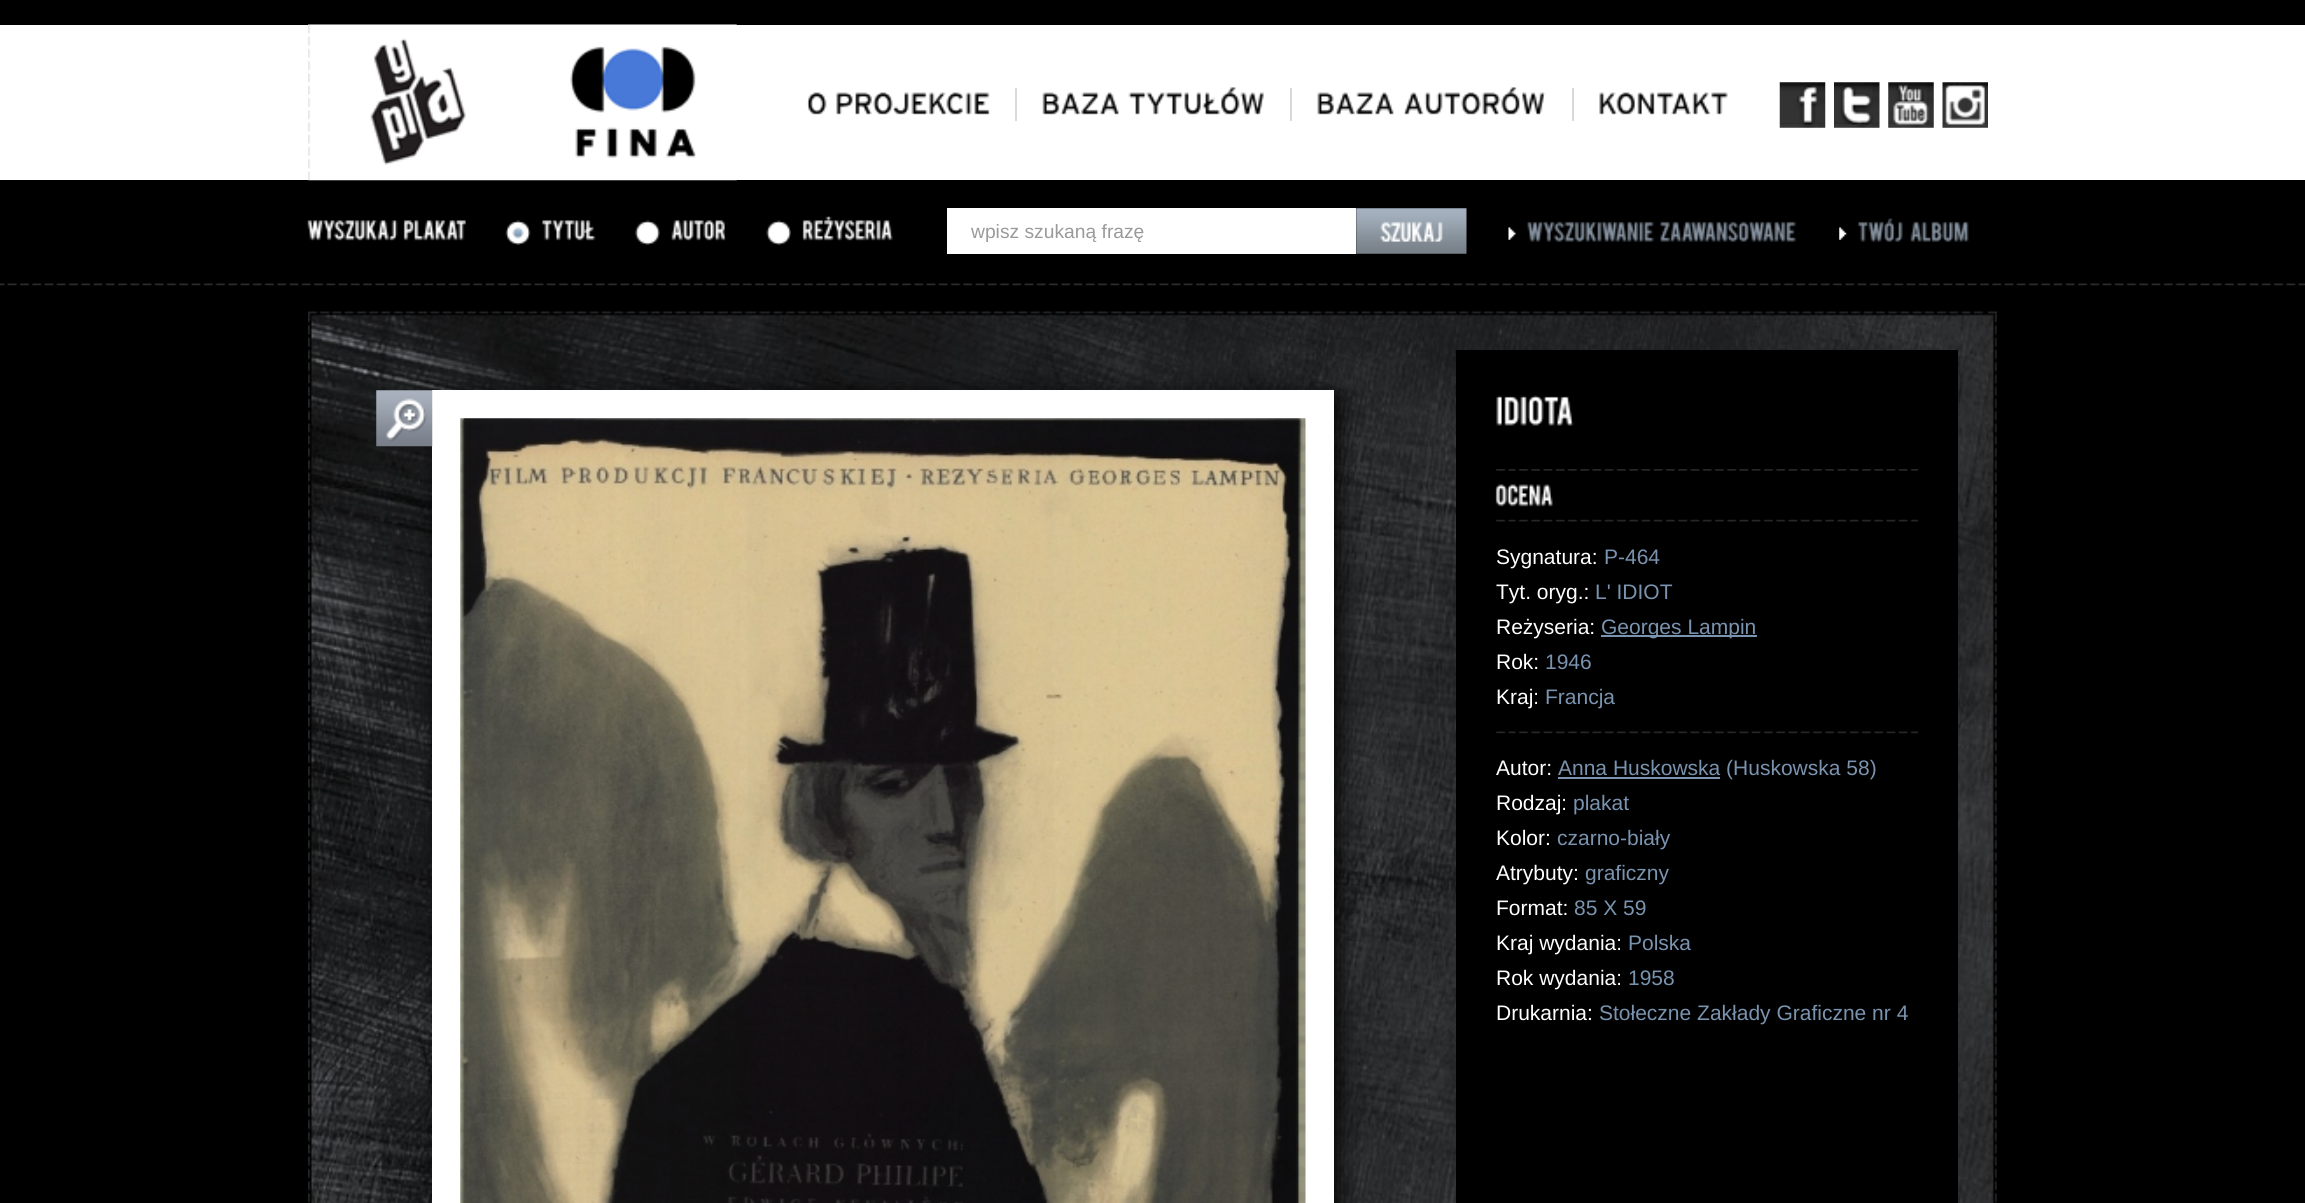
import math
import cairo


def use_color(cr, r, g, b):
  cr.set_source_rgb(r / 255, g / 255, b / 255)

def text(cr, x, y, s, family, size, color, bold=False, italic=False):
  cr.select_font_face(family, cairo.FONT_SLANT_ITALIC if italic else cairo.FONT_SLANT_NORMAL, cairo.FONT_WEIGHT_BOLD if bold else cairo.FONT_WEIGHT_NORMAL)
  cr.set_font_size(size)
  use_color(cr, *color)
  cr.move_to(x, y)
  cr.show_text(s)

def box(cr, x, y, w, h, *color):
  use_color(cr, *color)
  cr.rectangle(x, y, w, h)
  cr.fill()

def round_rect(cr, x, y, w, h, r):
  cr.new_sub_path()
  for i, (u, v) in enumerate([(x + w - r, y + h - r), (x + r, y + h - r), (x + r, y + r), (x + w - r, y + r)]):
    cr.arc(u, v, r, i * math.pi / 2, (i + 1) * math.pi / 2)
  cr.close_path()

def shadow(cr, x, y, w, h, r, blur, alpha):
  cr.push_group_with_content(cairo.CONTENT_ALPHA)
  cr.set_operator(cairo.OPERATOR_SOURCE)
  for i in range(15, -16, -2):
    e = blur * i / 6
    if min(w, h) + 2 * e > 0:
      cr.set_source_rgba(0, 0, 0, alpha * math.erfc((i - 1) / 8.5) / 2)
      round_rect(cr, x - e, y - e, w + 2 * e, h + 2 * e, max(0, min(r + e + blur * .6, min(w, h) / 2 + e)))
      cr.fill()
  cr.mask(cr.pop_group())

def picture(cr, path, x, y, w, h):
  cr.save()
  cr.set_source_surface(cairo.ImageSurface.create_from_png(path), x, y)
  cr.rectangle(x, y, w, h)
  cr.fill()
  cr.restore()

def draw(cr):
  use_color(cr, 0, 0, 0)
  cr.paint()
  box(cr, 0, 25, 2305, 155, 255, 255, 255)
  picture(cr, "img_01.png", 308, 24, 217, 157)
  picture(cr, "img_02.png", 525, 24, 212, 157)
  box(cr, 1015, 88, 2, 33, 217, 217, 217)
  picture(cr, "img_03.png", 807, 92, 20, 23)
  picture(cr, "img_04.png", 836, 92, 154, 23)
  box(cr, 1290, 88, 2, 33, 217, 217, 217)
  picture(cr, "img_05.png", 1042, 92, 77, 23)
  picture(cr, "img_06.png", 1128, 87, 136, 28)
  box(cr, 1572, 88, 2, 33, 217, 217, 217)
  picture(cr, "img_07.png", 1317, 92, 77, 23)
  picture(cr, "img_08.png", 1403, 87, 143, 28)
  picture(cr, "img_09.png", 1599, 92, 129, 23)
  picture(cr, "img_10.png", 1779, 82, 47, 46)
  picture(cr, "img_11.png", 1834, 82, 46, 46)
  picture(cr, "img_12.png", 1888, 82, 46, 46)
  picture(cr, "img_13.png", 1942, 82, 46, 46)
  picture(cr, "img_14.png", 0, 283, 2305, 3)
  picture(cr, "img_15.png", 307, 220, 91, 21)
  picture(cr, "img_16.png", 403, 220, 63, 21)
  picture(cr, "img_17.png", 505, 220, 26, 25)
  picture(cr, "img_18.png", 542, 220, 54, 21)
  picture(cr, "img_19.png", 635, 220, 25, 25)
  picture(cr, "img_20.png", 671, 220, 55, 21)
  picture(cr, "img_21.png", 766, 220, 25, 25)
  picture(cr, "img_22.png", 802, 216, 91, 25)
  box(cr, 947, 208, 409, 46, 255, 255, 255)
  picture(cr, "img_23.png", 1356, 208, 111, 46)
  picture(cr, "img_24.png", 1508, 227, 8, 13)
  picture(cr, "img_25.png", 1527, 221, 128, 21)
  picture(cr, "img_26.png", 1660, 221, 136, 21)
  picture(cr, "img_27.png", 1839, 227, 8, 13)
  picture(cr, "img_28.png", 1858, 218, 45, 24)
  picture(cr, "img_29.png", 1910, 221, 59, 21)
  picture(cr, "img_30.png", 308, 311, 1689, 892)
  use_color(cr, 0, 0, 0)
  shadow(cr, 438, 396, 901, 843, 0, 12, 1)
  box(cr, 432, 390, 902, 813, 255, 255, 255)
  picture(cr, "img_31.png", 376, 390, 57, 57)
  picture(cr, "img_32.png", 460, 418, 846, 785)
  box(cr, 1456, 350, 502, 853, 0, 0, 0)
  picture(cr, "img_33.png", 1496, 395, 78, 31)
  picture(cr, "img_34.png", 1496, 469, 422, 2)
  picture(cr, "img_35.png", 1495, 484, 58, 23)
  picture(cr, "img_36.png", 1496, 519, 422, 3)
  box(cr, 1601, 635, 156, 2, 122, 147, 175)
  picture(cr, "img_37.png", 1496, 731, 422, 3)
  box(cr, 1558, 777, 162, 2, 122, 147, 175)
  text(cr, 971, 238, "wpisz szukaną frazę", "Liberation Sans", 19.25, (154, 154, 154))
  text(cr, 1496, 564, "Sygnatura:", "Liberation Sans", 21, (255, 255, 255))
  text(cr, 1604, 564, "P-464", "Liberation Sans", 21, (122, 147, 175))
  text(cr, 1496, 599, "Tyt. oryg.:", "Liberation Sans", 21, (255, 255, 255))
  text(cr, 1595, 599, "L' IDIOT", "Liberation Sans", 21, (122, 147, 175))
  text(cr, 1496, 634, "Reżyseria:", "Liberation Sans", 21, (255, 255, 255))
  text(cr, 1601, 634, "Georges Lampin", "Liberation Sans", 21, (122, 147, 175))
  text(cr, 1496, 669, "Rok:", "Liberation Sans", 21, (255, 255, 255))
  text(cr, 1545, 669, "1946", "Liberation Sans", 21, (122, 147, 175))
  text(cr, 1496, 704, "Kraj:", "Liberation Sans", 21, (255, 255, 255))
  text(cr, 1545, 704, "Francja", "Liberation Sans", 21, (122, 147, 175))
  text(cr, 1496, 775, "Autor:", "Liberation Sans", 21, (255, 255, 255))
  text(cr, 1558, 775, "Anna Huskowska (Huskowska 58)", "Liberation Sans", 21, (122, 147, 175))
  text(cr, 1496, 810, "Rodzaj:", "Liberation Sans", 21, (255, 255, 255))
  text(cr, 1573, 810, "plakat", "Liberation Sans", 21, (122, 147, 175))
  text(cr, 1496, 845, "Kolor:", "Liberation Sans", 21, (255, 255, 255))
  text(cr, 1557, 845, "czarno-biały", "Liberation Sans", 21, (122, 147, 175))
  text(cr, 1496, 880, "Atrybuty:", "Liberation Sans", 21, (255, 255, 255))
  text(cr, 1585, 880, "graficzny", "Liberation Sans", 21, (122, 147, 175))
  text(cr, 1496, 915, "Format:", "Liberation Sans", 21, (255, 255, 255))
  text(cr, 1574, 915, "85 X 59", "Liberation Sans", 21, (122, 147, 175))
  text(cr, 1496, 950, "Kraj wydania:", "Liberation Sans", 21, (255, 255, 255))
  text(cr, 1628, 950, "Polska", "Liberation Sans", 21, (122, 147, 175))
  text(cr, 1496, 985, "Rok wydania:", "Liberation Sans", 21, (255, 255, 255))
  text(cr, 1628, 985, "1958", "Liberation Sans", 21, (122, 147, 175))
  text(cr, 1496, 1020, "Drukarnia:", "Liberation Sans", 21, (255, 255, 255))
  text(cr, 1599, 1020, "Stołeczne Zakłady Graficzne nr 4", "Liberation Sans", 21, (122, 147, 175))


surface = cairo.ImageSurface(cairo.FORMAT_RGB24, 2305, 1203)
cr = cairo.Context(surface)
options = cairo.FontOptions()
options.set_hint_metrics(cairo.HINT_METRICS_OFF)
options.set_hint_style(cairo.HINT_STYLE_NONE)
cr.set_font_options(options)
cr.set_miter_limit(4)
draw(cr)
surface.write_to_png("out.png")
